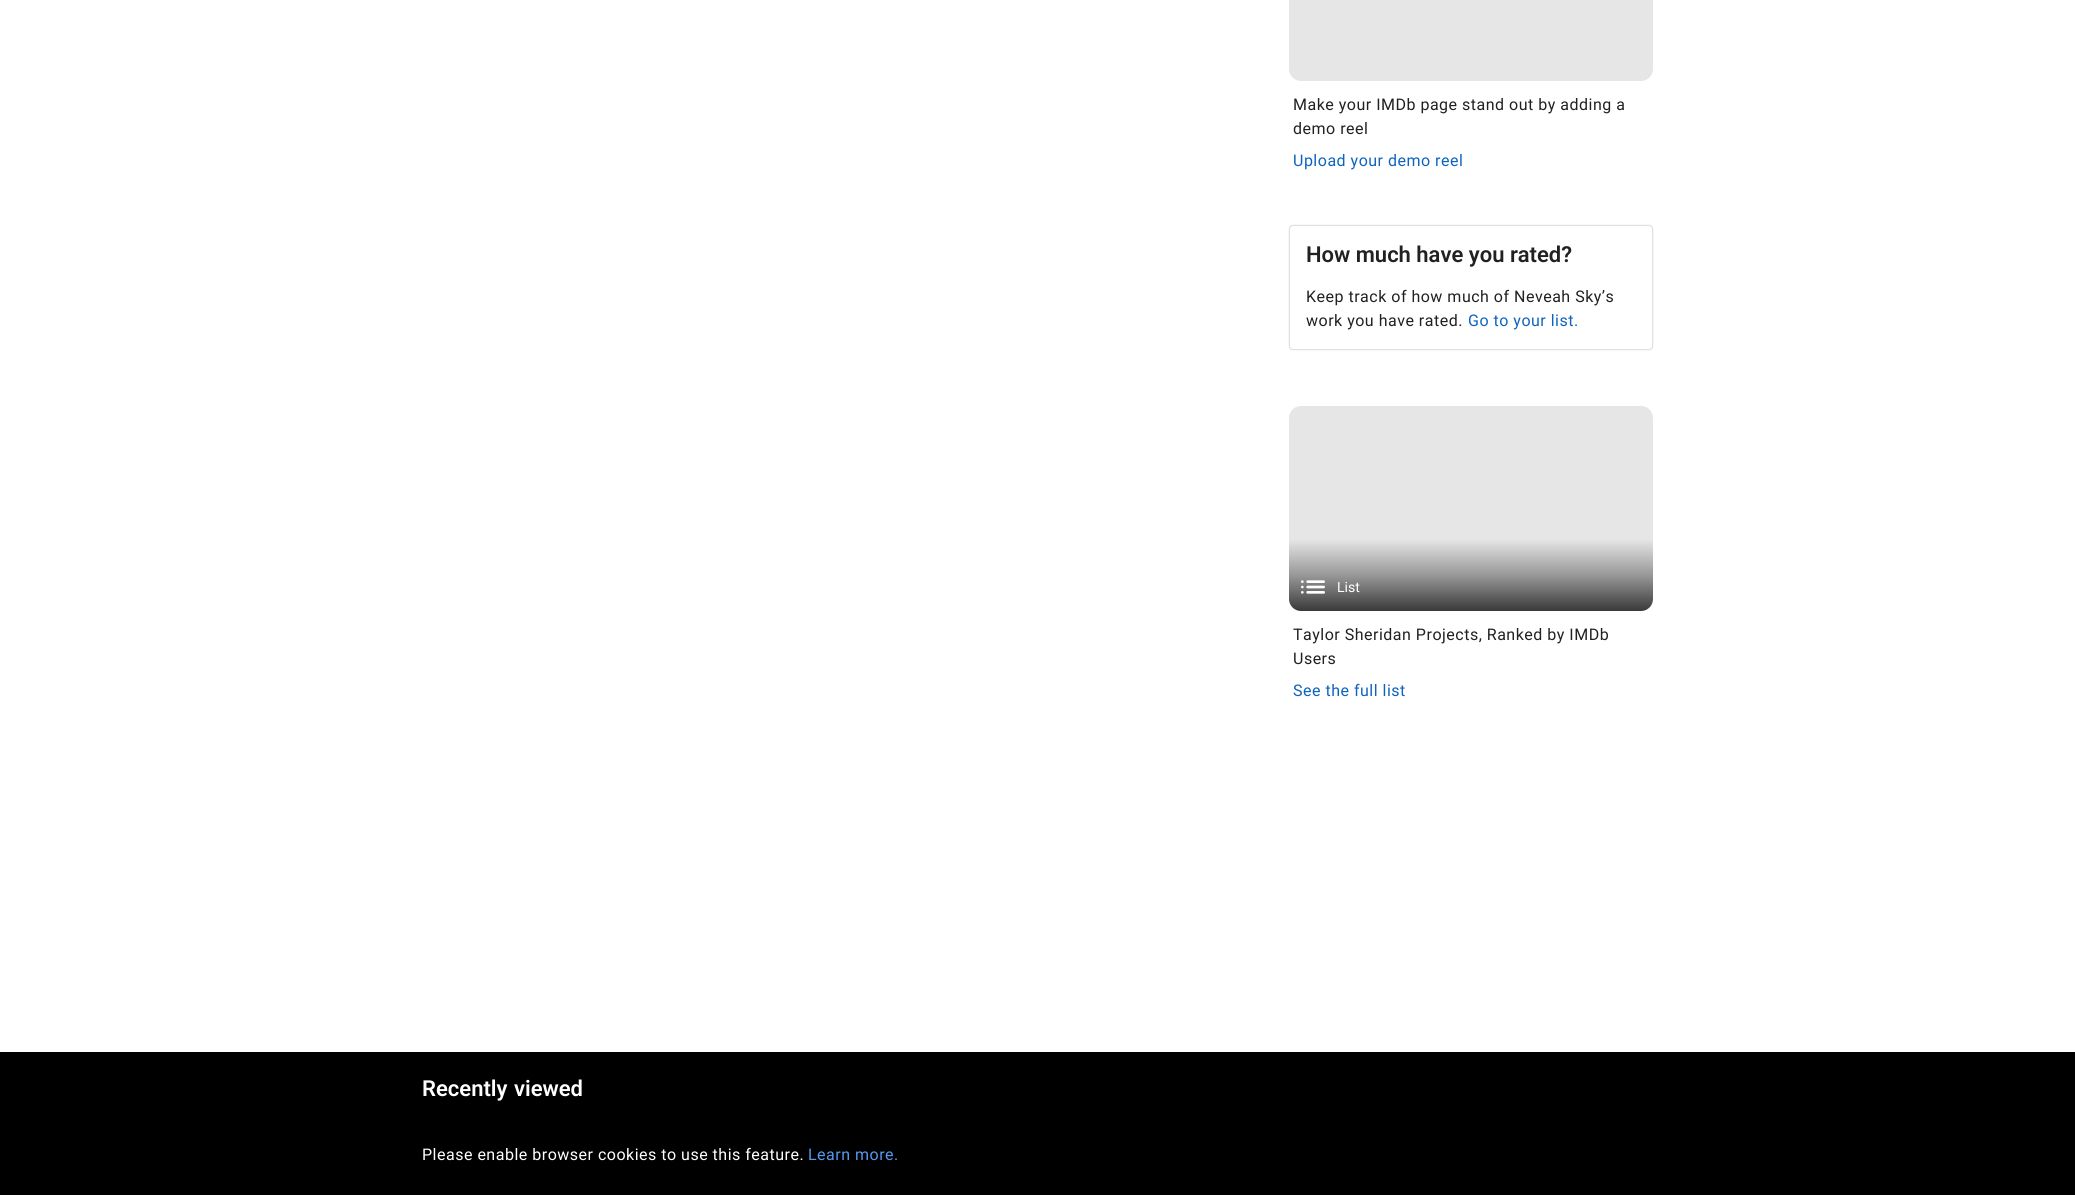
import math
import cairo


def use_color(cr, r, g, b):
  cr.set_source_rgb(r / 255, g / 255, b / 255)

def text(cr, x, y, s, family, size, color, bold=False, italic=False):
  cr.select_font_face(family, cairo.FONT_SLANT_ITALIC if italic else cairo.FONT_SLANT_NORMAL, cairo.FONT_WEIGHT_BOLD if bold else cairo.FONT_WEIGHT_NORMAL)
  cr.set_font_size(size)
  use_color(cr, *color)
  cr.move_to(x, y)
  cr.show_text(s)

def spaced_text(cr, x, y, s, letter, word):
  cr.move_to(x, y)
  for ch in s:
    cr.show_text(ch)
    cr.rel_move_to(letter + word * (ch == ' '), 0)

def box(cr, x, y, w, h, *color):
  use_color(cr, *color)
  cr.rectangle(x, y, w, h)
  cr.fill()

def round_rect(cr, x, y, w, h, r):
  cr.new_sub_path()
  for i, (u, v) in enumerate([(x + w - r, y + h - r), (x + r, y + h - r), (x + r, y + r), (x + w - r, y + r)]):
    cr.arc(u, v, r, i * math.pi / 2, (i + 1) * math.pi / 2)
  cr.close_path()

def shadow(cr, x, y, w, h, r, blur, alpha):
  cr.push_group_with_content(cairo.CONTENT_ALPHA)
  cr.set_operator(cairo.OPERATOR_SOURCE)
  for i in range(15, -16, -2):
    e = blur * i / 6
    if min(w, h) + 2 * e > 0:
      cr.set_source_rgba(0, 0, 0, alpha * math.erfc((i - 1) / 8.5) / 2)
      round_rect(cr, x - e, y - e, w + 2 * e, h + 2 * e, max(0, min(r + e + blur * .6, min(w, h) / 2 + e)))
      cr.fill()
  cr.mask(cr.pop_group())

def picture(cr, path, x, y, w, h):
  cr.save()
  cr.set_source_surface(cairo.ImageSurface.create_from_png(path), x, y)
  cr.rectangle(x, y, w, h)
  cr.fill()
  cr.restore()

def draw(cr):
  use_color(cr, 0, 0, 0)
  cr.paint()
  box(cr, 0, 0, 2075, 1052, 255, 255, 255)
  use_color(cr, 230, 230, 230)
  round_rect(cr, 1289, -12, 364, 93, 12)
  cr.fill()
  use_color(cr, 0, 0, 0)
  shadow(cr, 1289, 225, 364, 125, 4, 0.5, 0.12)
  use_color(cr, 255, 255, 255)
  round_rect(cr, 1289.5, 225.5, 363, 124, 3.5)
  cr.fill_preserve()
  use_color(cr, 224, 224, 224)
  cr.set_line_width(1)
  cr.stroke()
  use_color(cr, 230, 230, 230)
  round_rect(cr, 1289, 406, 364, 205, 12)
  cr.fill()
  gradient = cairo.LinearGradient(1471, 406, 1471, 611)
  gradient.add_color_stop_rgba(0, 0, 0, 0, 0)
  gradient.add_color_stop_rgba(0.65, 0, 0, 0, 0)
  gradient.add_color_stop_rgba(0.83, 0, 0, 0, 0.35)
  gradient.add_color_stop_rgba(1, 0, 0, 0, 0.75)
  cr.set_source(gradient)
  round_rect(cr, 1289, 406, 364, 205, 12)
  cr.fill()
  picture(cr, "img_01.png", 1301, 580, 24, 14)
  cr.select_font_face("Roboto")
  cr.set_font_size(16)
  use_color(cr, 33, 33, 33)
  spaced_text(cr, 1293, 110, "Make your IMDb page stand out by adding a", 0.5, 0)
  spaced_text(cr, 1293, 134, "demo reel", 0.5, 0)
  use_color(cr, 14, 99, 190)
  spaced_text(cr, 1293, 166, "Upload your demo reel", 0.5, 0)
  text(cr, 1306, 262, "How much have you rated?", "Roboto SemiBold", 22, (33, 33, 33))
  cr.select_font_face("Roboto")
  cr.set_font_size(16)
  spaced_text(cr, 1306, 302, "Keep track of how much of Neveah Sky’s", 0.5, 0)
  spaced_text(cr, 1306, 326, "work you have rated.", 0.5, 0)
  use_color(cr, 14, 99, 190)
  spaced_text(cr, 1468, 326, "Go to your list.", 0.5, 0)
  text(cr, 1337, 592, "List", "Roboto", 14, (255, 255, 255))
  cr.set_font_size(16)
  use_color(cr, 33, 33, 33)
  spaced_text(cr, 1293, 640, "Taylor Sheridan Projects, Ranked by IMDb", 0.5, 0)
  spaced_text(cr, 1293, 664, "Users", 0.5, 0)
  use_color(cr, 14, 99, 190)
  spaced_text(cr, 1293, 696, "See the full list", 0.5, 0)
  cr.select_font_face("Roboto SemiBold")
  cr.set_font_size(22)
  use_color(cr, 255, 255, 255)
  spaced_text(cr, 422, 1096, "Recently viewed", 0, 1)
  cr.select_font_face("Roboto")
  cr.set_font_size(16)
  spaced_text(cr, 422, 1160, "Please enable browser cookies to use this feature.", 0.5, 0)
  use_color(cr, 87, 153, 239)
  spaced_text(cr, 808, 1160, "Learn more.", 0.5, 0)


surface = cairo.ImageSurface(cairo.FORMAT_RGB24, 2075, 1195)
cr = cairo.Context(surface)
options = cairo.FontOptions()
options.set_hint_metrics(cairo.HINT_METRICS_OFF)
options.set_hint_style(cairo.HINT_STYLE_NONE)
cr.set_font_options(options)
cr.set_miter_limit(4)
draw(cr)
surface.write_to_png("out.png")
